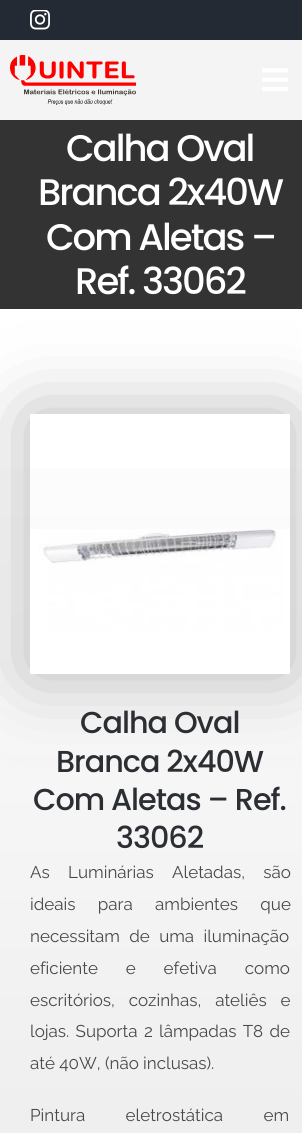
import math
import cairo


def use_color(cr, r, g, b):
  cr.set_source_rgb(r / 255, g / 255, b / 255)

def text(cr, x, y, s, family, size, color, bold=False, italic=False):
  cr.select_font_face(family, cairo.FONT_SLANT_ITALIC if italic else cairo.FONT_SLANT_NORMAL, cairo.FONT_WEIGHT_BOLD if bold else cairo.FONT_WEIGHT_NORMAL)
  cr.set_font_size(size)
  use_color(cr, *color)
  cr.move_to(x, y)
  cr.show_text(s)

def spaced_text(cr, x, y, s, letter, word):
  cr.move_to(x, y)
  for ch in s:
    cr.show_text(ch)
    cr.rel_move_to(letter + word * (ch == ' '), 0)

def box(cr, x, y, w, h, *color):
  use_color(cr, *color)
  cr.rectangle(x, y, w, h)
  cr.fill()

def round_rect(cr, x, y, w, h, r):
  cr.new_sub_path()
  for i, (u, v) in enumerate([(x + w - r, y + h - r), (x + r, y + h - r), (x + r, y + r), (x + w - r, y + r)]):
    cr.arc(u, v, r, i * math.pi / 2, (i + 1) * math.pi / 2)
  cr.close_path()

def shadow(cr, x, y, w, h, r, blur, alpha):
  cr.push_group_with_content(cairo.CONTENT_ALPHA)
  cr.set_operator(cairo.OPERATOR_SOURCE)
  for i in range(15, -16, -2):
    e = blur * i / 6
    if min(w, h) + 2 * e > 0:
      cr.set_source_rgba(0, 0, 0, alpha * math.erfc((i - 1) / 8.5) / 2)
      round_rect(cr, x - e, y - e, w + 2 * e, h + 2 * e, max(0, min(r + e + blur * .6, min(w, h) / 2 + e)))
      cr.fill()
  cr.mask(cr.pop_group())

def picture(cr, path, x, y, w, h):
  cr.save()
  cr.set_source_surface(cairo.ImageSurface.create_from_png(path), x, y)
  cr.rectangle(x, y, w, h)
  cr.fill()
  cr.restore()

def draw(cr):
  use_color(cr, 255, 255, 255)
  cr.paint()
  box(cr, 0, 0, 302, 40, 36, 42, 51)
  picture(cr, "img_01.png", 30, 10, 20, 20)
  box(cr, 0, 40, 302, 80, 244, 244, 244)
  picture(cr, "img_02.png", 10, 55, 126, 50)
  picture(cr, "img_03.png", 262, 68, 26, 23)
  box(cr, 0, 120, 302, 189, 51, 51, 51)
  gradient = cairo.LinearGradient(160, 349, 160, 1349)
  gradient.add_color_stop_rgba(0, 1, 1, 1, 1)
  gradient.add_color_stop_rgba(1, 0.918, 0.918, 0.918, 1)
  cr.set_source(gradient)
  cr.rectangle(0, 468, 302, 665)
  cr.fill()
  cr.save()
  cr.set_fill_rule(cairo.FILL_RULE_EVEN_ODD)
  cr.new_path()
  cr.move_to(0, 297)
  cr.line_to(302, 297)
  cr.line_to(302, 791)
  cr.line_to(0, 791)
  cr.close_path()
  cr.move_to(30, 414)
  cr.line_to(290, 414)
  cr.line_to(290, 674)
  cr.line_to(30, 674)
  cr.close_path()
  cr.clip()
  use_color(cr, 183, 183, 183)
  shadow(cr, 30, 414, 260, 260, 0, 38.5, 1)
  cr.restore()
  picture(cr, "img_04.png", 30, 529, 260, 145)
  cr.select_font_face("Poppins Medium")
  cr.set_font_size(37)
  use_color(cr, 255, 255, 255)
  spaced_text(cr, 66, 161, "Calha Oval", -2, 0)
  spaced_text(cr, 38, 205, "Branca 2x40W", -2, 0)
  spaced_text(cr, 46, 250, "Com Aletas –", -2, 0)
  spaced_text(cr, 75, 294, "Ref. 33062", -2, 0)
  cr.set_font_size(30.25)
  use_color(cr, 43, 46, 50)
  spaced_text(cr, 80, 733, "Calha Oval", -1, 0)
  spaced_text(cr, 56, 772, "Branca 2x40W", -1, 0)
  spaced_text(cr, 33, 810, "Com Aletas – Ref.", -1, 0)
  spaced_text(cr, 116, 848, "33062", -1, 0)
  cr.select_font_face("Raleway")
  cr.set_font_size(17)
  use_color(cr, 73, 73, 73)
  spaced_text(cr, 30, 878, "As Luminárias Aletadas, são", 0, 14)
  spaced_text(cr, 30, 910, "ideais para ambientes que", 0, 18)
  spaced_text(cr, 30, 942, "necessitam de uma iluminação", 0, 5)
  spaced_text(cr, 30, 974, "eficiente e efetiva como", 0, 23.5)
  spaced_text(cr, 30, 1006, "escritórios, cozinhas, ateliês e", 0, 9.5)
  spaced_text(cr, 30, 1037, "lojas. Suporta 2 lâmpadas T8 de", 0, 2)
  text(cr, 30, 1069, "até 40W, (não inclusas).", "Raleway", 17, (73, 73, 73))
  spaced_text(cr, 30, 1121, "Pintura eletrostática em", 0, 36)


surface = cairo.ImageSurface(cairo.FORMAT_RGB24, 302, 1133)
cr = cairo.Context(surface)
options = cairo.FontOptions()
options.set_hint_metrics(cairo.HINT_METRICS_OFF)
options.set_hint_style(cairo.HINT_STYLE_NONE)
cr.set_font_options(options)
cr.set_miter_limit(4)
draw(cr)
surface.write_to_png("out.png")
